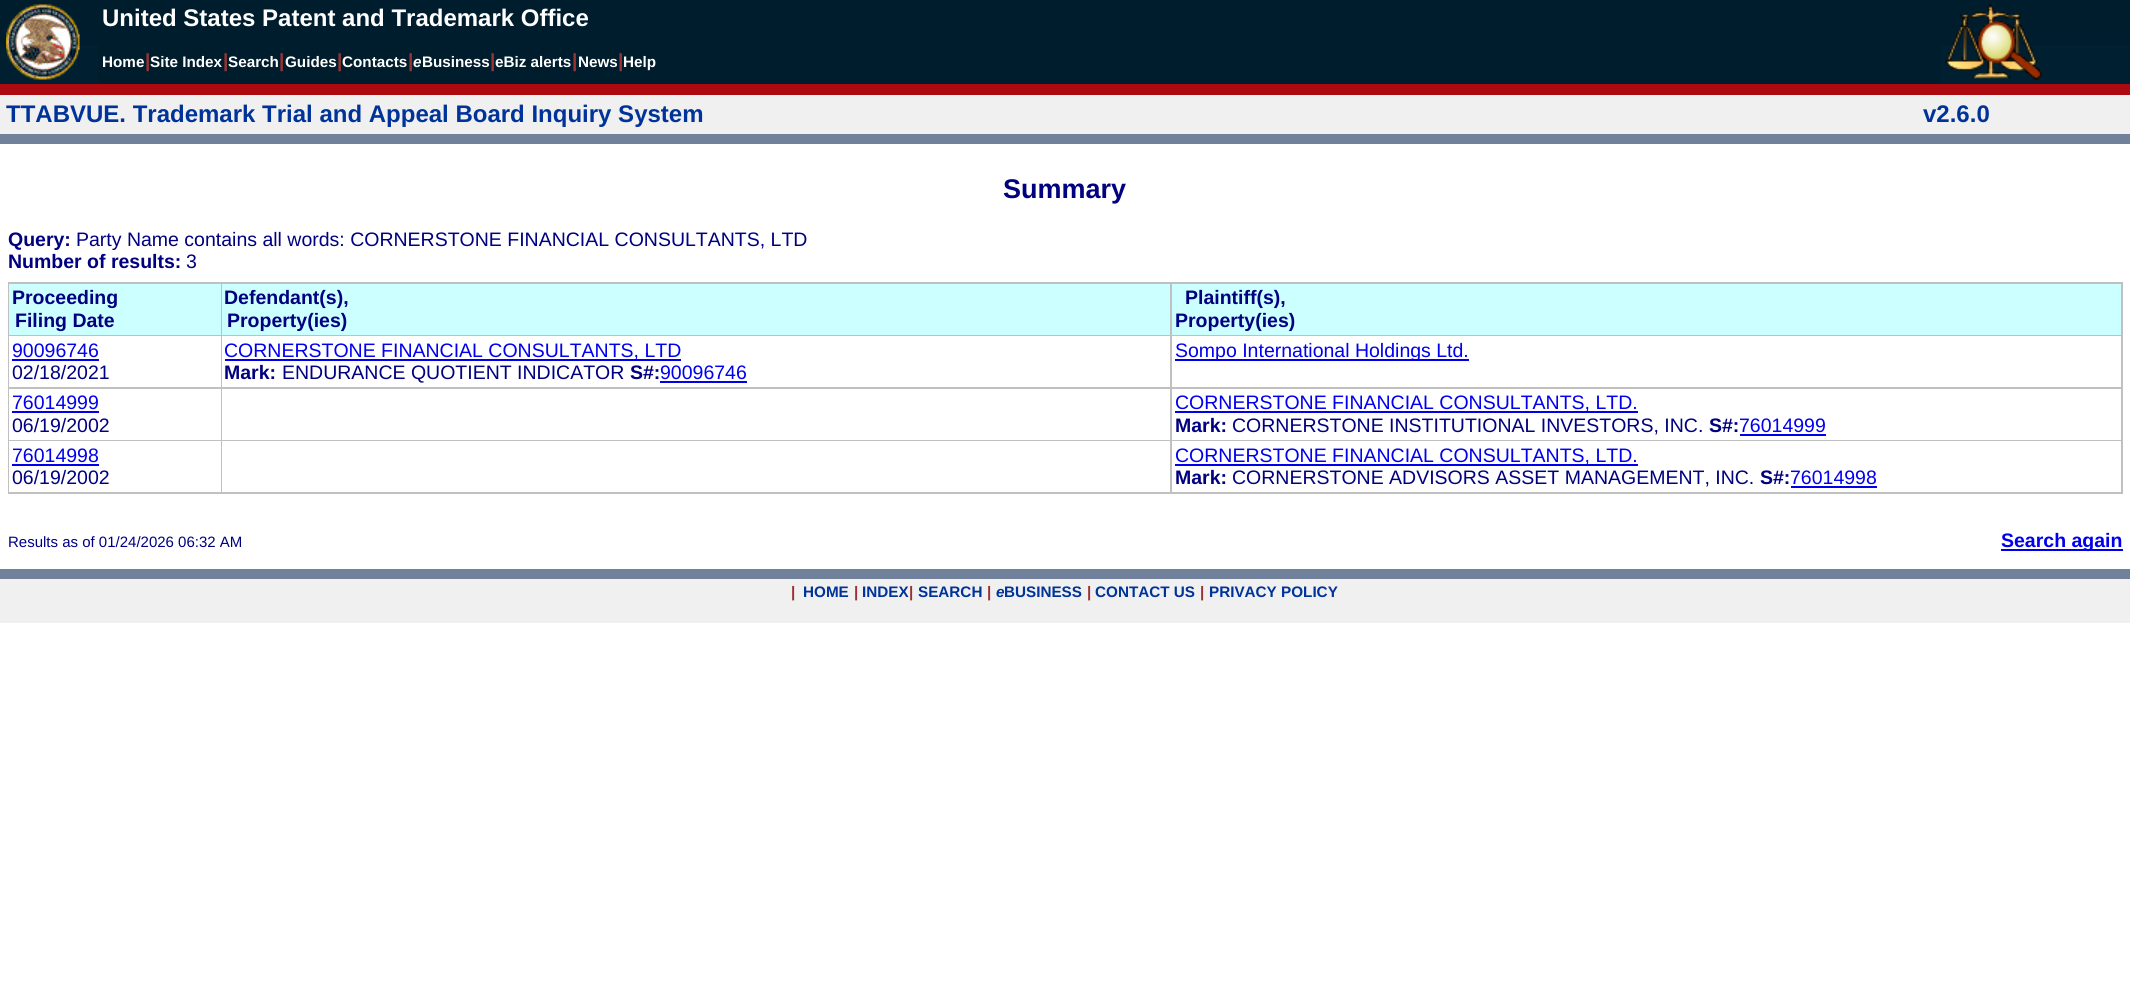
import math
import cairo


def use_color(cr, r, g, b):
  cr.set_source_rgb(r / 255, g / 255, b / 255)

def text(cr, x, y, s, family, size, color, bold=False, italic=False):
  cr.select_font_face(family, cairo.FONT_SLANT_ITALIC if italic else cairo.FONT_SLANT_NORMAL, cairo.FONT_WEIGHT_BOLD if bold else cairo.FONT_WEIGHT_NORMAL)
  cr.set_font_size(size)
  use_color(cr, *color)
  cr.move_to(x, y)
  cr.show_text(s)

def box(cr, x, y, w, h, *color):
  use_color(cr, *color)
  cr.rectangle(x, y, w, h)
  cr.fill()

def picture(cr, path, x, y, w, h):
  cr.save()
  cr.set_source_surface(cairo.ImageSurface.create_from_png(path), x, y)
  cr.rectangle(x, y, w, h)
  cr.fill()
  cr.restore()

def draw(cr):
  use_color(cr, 255, 255, 255)
  cr.paint()
  box(cr, 0, 0, 2130, 45, 0, 29, 45)
  box(cr, 0, 45, 2130, 39, 0, 32, 50)
  picture(cr, "img_01.png", 6, 4, 74, 76)
  picture(cr, "img_02.png", 1945, 4, 97, 76)
  box(cr, 98, 45, 1843, 39, 0, 29, 45)
  box(cr, 0, 84, 2130, 11, 172, 9, 17)
  box(cr, 0, 95, 2130, 39, 240, 240, 240)
  box(cr, 0, 134, 2130, 10, 113, 129, 155)
  box(cr, 8, 282, 2115, 212, 192, 192, 192)
  box(cr, 9, 284, 212, 51, 204, 255, 255)
  box(cr, 222, 284, 948, 51, 204, 255, 255)
  box(cr, 1172, 284, 949, 51, 204, 255, 255)
  box(cr, 9, 336, 212, 51, 255, 255, 255)
  box(cr, 12, 359, 87, 2, 0, 0, 238)
  box(cr, 222, 336, 948, 51, 255, 255, 255)
  box(cr, 225, 359, 456, 2, 0, 0, 238)
  box(cr, 660, 381, 87, 2, 0, 0, 238)
  box(cr, 1172, 336, 949, 51, 255, 255, 255)
  box(cr, 1175, 359, 294, 2, 0, 0, 238)
  box(cr, 9, 389, 212, 51, 255, 255, 255)
  box(cr, 12, 411, 87, 2, 0, 0, 238)
  box(cr, 222, 389, 948, 51, 255, 255, 255)
  box(cr, 1172, 389, 949, 51, 255, 255, 255)
  box(cr, 1175, 411, 463, 2, 0, 0, 238)
  box(cr, 1740, 434, 86, 2, 0, 0, 238)
  box(cr, 9, 441, 212, 51, 255, 255, 255)
  box(cr, 12, 464, 87, 2, 0, 0, 238)
  box(cr, 222, 441, 948, 51, 255, 255, 255)
  box(cr, 1172, 441, 949, 51, 255, 255, 255)
  box(cr, 1175, 464, 463, 2, 0, 0, 238)
  box(cr, 1791, 486, 86, 2, 0, 0, 238)
  box(cr, 2001, 549, 122, 2, 0, 0, 238)
  box(cr, 0, 569, 2130, 10, 113, 129, 155)
  box(cr, 0, 579, 2130, 44, 240, 240, 240)
  text(cr, 102, 26, "United States Patent and Trademark Office", "Liberation Sans", 24, (255, 255, 255), bold=True)
  text(cr, 102, 67, "Home", "Liberation Sans", 15.25, (255, 255, 255), bold=True)
  text(cr, 145, 67, "|", "Liberation Sans", 19, (153, 51, 51), bold=True)
  text(cr, 150, 67, "Site Index", "Liberation Sans", 15.25, (255, 255, 255), bold=True)
  text(cr, 223, 67, "|", "Liberation Sans", 19, (153, 51, 51), bold=True)
  text(cr, 228, 67, "Search", "Liberation Sans", 15.25, (255, 255, 255), bold=True)
  text(cr, 279, 67, "|", "Liberation Sans", 19, (153, 51, 51), bold=True)
  text(cr, 285, 67, "Guides", "Liberation Sans", 15.25, (255, 255, 255), bold=True)
  text(cr, 337, 67, "|", "Liberation Sans", 19, (153, 51, 51), bold=True)
  text(cr, 342, 67, "Contacts", "Liberation Sans", 15.25, (255, 255, 255), bold=True)
  text(cr, 408, 67, "|", "Liberation Sans", 19, (153, 51, 51), bold=True)
  text(cr, 413, 67, "e", "Liberation Sans", 15.25, (255, 255, 255), bold=True, italic=True)
  text(cr, 422, 67, "Business", "Liberation Sans", 15.25, (255, 255, 255), bold=True)
  text(cr, 490, 67, "|", "Liberation Sans", 19, (153, 51, 51), bold=True)
  text(cr, 495, 67, "eBiz alerts", "Liberation Sans", 15.25, (255, 255, 255), bold=True)
  text(cr, 572, 67, "|", "Liberation Sans", 19, (153, 51, 51), bold=True)
  text(cr, 578, 67, "News", "Liberation Sans", 15.25, (255, 255, 255), bold=True)
  text(cr, 618, 67, "|", "Liberation Sans", 19, (153, 51, 51), bold=True)
  text(cr, 623, 67, "Help", "Liberation Sans", 15.25, (255, 255, 255), bold=True)
  text(cr, 6, 122, "TTABVUE. Trademark Trial and Appeal Board Inquiry System", "Liberation Sans", 24, (0, 51, 153), bold=True)
  text(cr, 1923, 122, "v2.6.0", "Liberation Sans", 24, (0, 51, 153), bold=True)
  text(cr, 1003, 198, "Summary", "Liberation Sans", 27, (0, 0, 128), bold=True)
  text(cr, 8, 246, "Query:", "Liberation Sans", 19.5, (0, 0, 128), bold=True)
  text(cr, 76, 246, "Party Name contains all words: CORNERSTONE FINANCIAL CONSULTANTS, LTD", "Liberation Sans", 19.5, (0, 0, 128))
  text(cr, 8, 268, "Number of results:", "Liberation Sans", 19.5, (0, 0, 128), bold=True)
  text(cr, 186, 268, "3", "Liberation Sans", 19.5, (0, 0, 128))
  text(cr, 12, 304, "Proceeding", "Liberation Sans", 19.5, (0, 0, 128), bold=True)
  text(cr, 15, 327, "Filing Date", "Liberation Sans", 19.5, (0, 0, 128), bold=True)
  text(cr, 224, 304, "Defendant(s),", "Liberation Sans", 19.5, (0, 0, 128), bold=True)
  text(cr, 227, 327, "Property(ies)", "Liberation Sans", 19.5, (0, 0, 128), bold=True)
  text(cr, 1185, 304, "Plaintiff(s),", "Liberation Sans", 19.5, (0, 0, 128), bold=True)
  text(cr, 1175, 327, "Property(ies)", "Liberation Sans", 19.5, (0, 0, 128), bold=True)
  text(cr, 12, 357, "90096746", "Liberation Sans", 19.5, (0, 0, 238))
  text(cr, 12, 379, "02/18/2021", "Liberation Sans", 19.5, (0, 0, 128))
  text(cr, 224, 357, "CORNERSTONE FINANCIAL CONSULTANTS, LTD", "Liberation Sans", 19.5, (0, 0, 238))
  text(cr, 224, 379, "Mark:", "Liberation Sans", 19.5, (0, 0, 128), bold=True)
  text(cr, 282, 379, "ENDURANCE QUOTIENT INDICATOR", "Liberation Sans", 19.5, (0, 0, 128))
  text(cr, 630, 379, "S#:", "Liberation Sans", 19.5, (0, 0, 128), bold=True)
  text(cr, 660, 379, "90096746", "Liberation Sans", 19.5, (0, 0, 238))
  text(cr, 1175, 357, "Sompo International Holdings Ltd.", "Liberation Sans", 19.5, (0, 0, 238))
  text(cr, 12, 409, "76014999", "Liberation Sans", 19.5, (0, 0, 238))
  text(cr, 12, 432, "06/19/2002", "Liberation Sans", 19.5, (0, 0, 128))
  text(cr, 1175, 409, "CORNERSTONE FINANCIAL CONSULTANTS, LTD.", "Liberation Sans", 19.5, (0, 0, 238))
  text(cr, 1175, 432, "Mark:", "Liberation Sans", 19.5, (0, 0, 128), bold=True)
  text(cr, 1232, 432, "CORNERSTONE INSTITUTIONAL INVESTORS, INC.", "Liberation Sans", 19.5, (0, 0, 128))
  text(cr, 1709, 432, "S#:", "Liberation Sans", 19.5, (0, 0, 128), bold=True)
  text(cr, 1739, 432, "76014999", "Liberation Sans", 19.5, (0, 0, 238))
  text(cr, 12, 462, "76014998", "Liberation Sans", 19.5, (0, 0, 238))
  text(cr, 12, 484, "06/19/2002", "Liberation Sans", 19.5, (0, 0, 128))
  text(cr, 1175, 462, "CORNERSTONE FINANCIAL CONSULTANTS, LTD.", "Liberation Sans", 19.5, (0, 0, 238))
  text(cr, 1175, 484, "Mark:", "Liberation Sans", 19.5, (0, 0, 128), bold=True)
  text(cr, 1232, 484, "CORNERSTONE ADVISORS ASSET MANAGEMENT, INC.", "Liberation Sans", 19.5, (0, 0, 128))
  text(cr, 1760, 484, "S#:", "Liberation Sans", 19.5, (0, 0, 128), bold=True)
  text(cr, 1790, 484, "76014998", "Liberation Sans", 19.5, (0, 0, 238))
  text(cr, 8, 547, "Results as of 01/24/2026 06:32 AM", "Liberation Sans", 15, (0, 0, 128))
  text(cr, 2001, 547, "Search again", "Liberation Sans", 19.5, (0, 0, 238), bold=True)
  text(cr, 791, 597, "|", "Liberation Sans", 15.25, (153, 51, 51), bold=True)
  text(cr, 803, 597, "HOME", "Liberation Sans", 15.25, (0, 51, 153), bold=True)
  text(cr, 854, 597, "|", "Liberation Sans", 15.25, (153, 51, 51), bold=True)
  text(cr, 862, 597, "INDEX", "Liberation Sans", 15.25, (0, 51, 153), bold=True)
  text(cr, 909, 597, "|", "Liberation Sans", 15.25, (153, 51, 51), bold=True)
  text(cr, 918, 597, "SEARCH", "Liberation Sans", 15.25, (0, 51, 153), bold=True)
  text(cr, 987, 597, "|", "Liberation Sans", 15.25, (153, 51, 51), bold=True)
  text(cr, 996, 597, "e", "Liberation Sans", 15.25, (0, 51, 153), bold=True, italic=True)
  text(cr, 1004, 597, "BUSINESS", "Liberation Sans", 15.25, (0, 51, 153), bold=True)
  text(cr, 1087, 597, "|", "Liberation Sans", 15.25, (153, 51, 51), bold=True)
  text(cr, 1095, 597, "CONTACT US", "Liberation Sans", 15.25, (0, 51, 153), bold=True)
  text(cr, 1200, 597, "|", "Liberation Sans", 15.25, (153, 51, 51), bold=True)
  text(cr, 1209, 597, "PRIVACY POLICY", "Liberation Sans", 15.25, (0, 51, 153), bold=True)


surface = cairo.ImageSurface(cairo.FORMAT_RGB24, 2130, 994)
cr = cairo.Context(surface)
options = cairo.FontOptions()
options.set_hint_metrics(cairo.HINT_METRICS_OFF)
options.set_hint_style(cairo.HINT_STYLE_NONE)
cr.set_font_options(options)
cr.set_miter_limit(4)
draw(cr)
surface.write_to_png("out.png")
